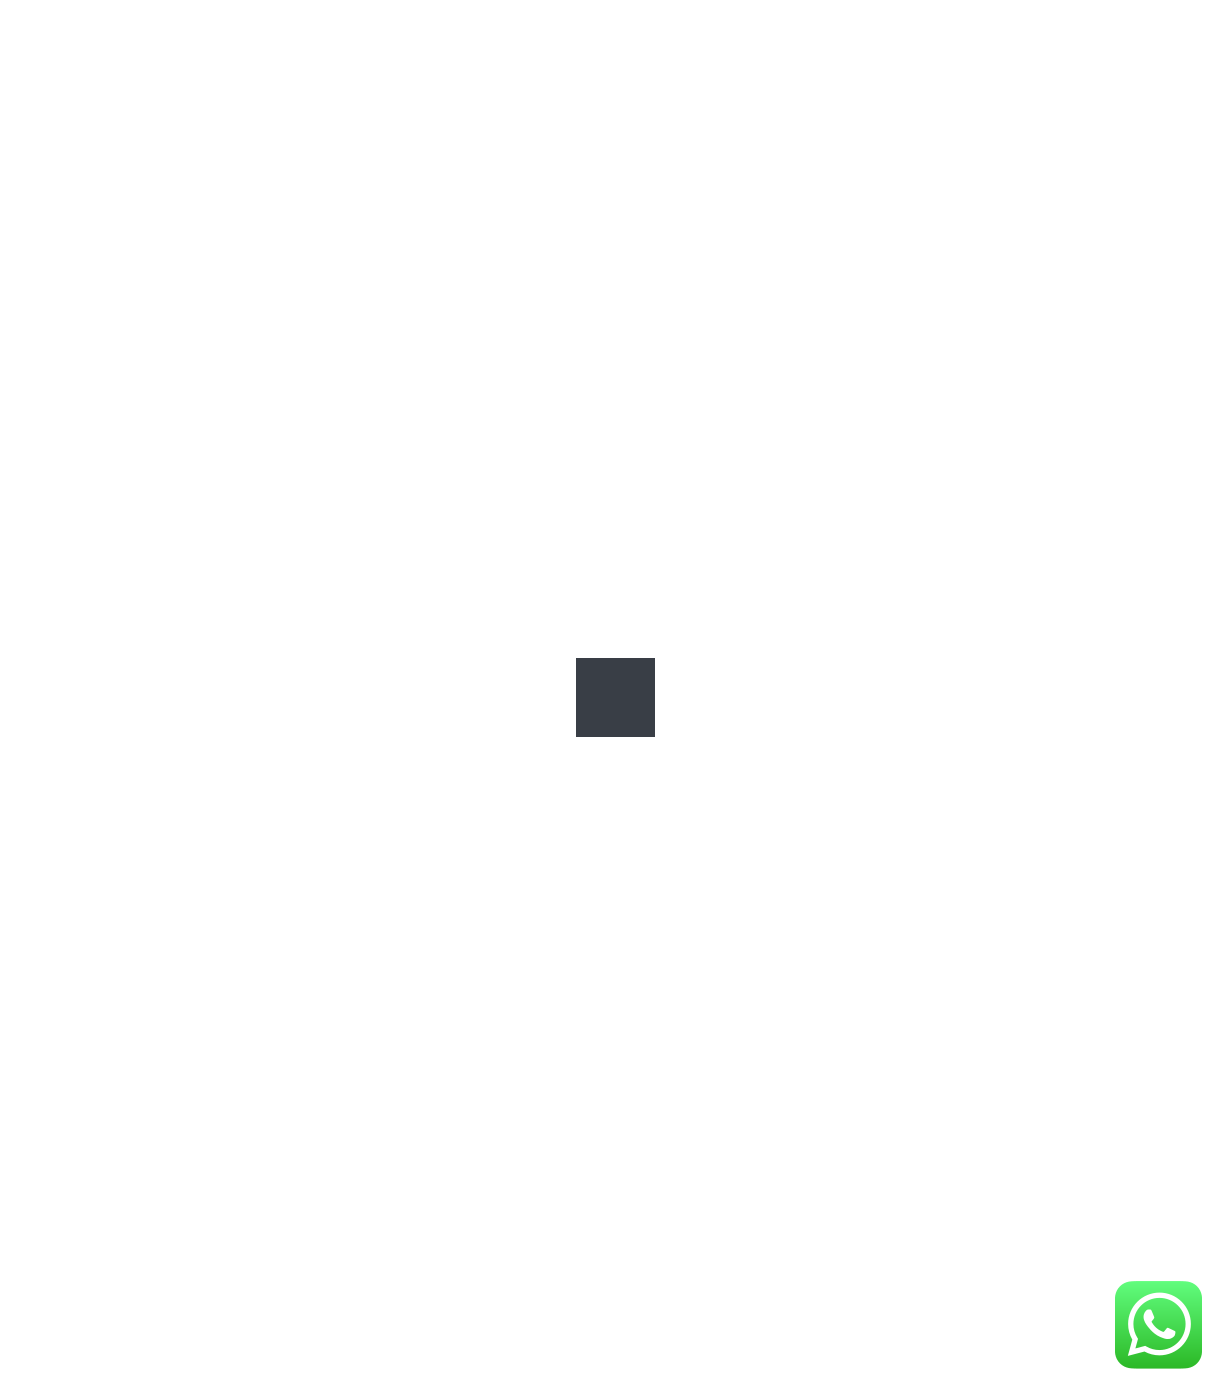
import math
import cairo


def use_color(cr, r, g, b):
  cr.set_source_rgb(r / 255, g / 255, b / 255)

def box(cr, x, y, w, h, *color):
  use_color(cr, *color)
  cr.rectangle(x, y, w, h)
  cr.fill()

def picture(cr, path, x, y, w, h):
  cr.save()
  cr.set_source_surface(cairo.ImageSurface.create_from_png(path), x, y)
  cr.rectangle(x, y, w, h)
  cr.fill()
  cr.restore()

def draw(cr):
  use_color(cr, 255, 255, 255)
  cr.paint()
  box(cr, 576, 658, 79, 79, 57, 62, 70)
  picture(cr, "img_01.png", 1115, 1281, 87, 88)


surface = cairo.ImageSurface(cairo.FORMAT_RGB24, 1228, 1394)
cr = cairo.Context(surface)
options = cairo.FontOptions()
options.set_hint_metrics(cairo.HINT_METRICS_OFF)
options.set_hint_style(cairo.HINT_STYLE_NONE)
cr.set_font_options(options)
cr.set_miter_limit(4)
draw(cr)
surface.write_to_png("out.png")
